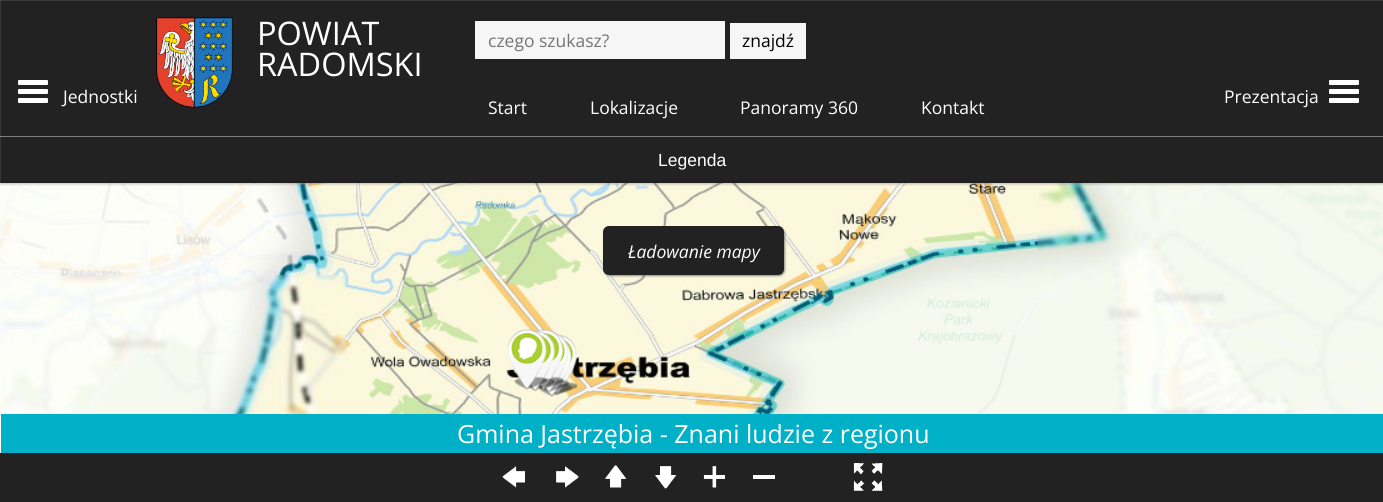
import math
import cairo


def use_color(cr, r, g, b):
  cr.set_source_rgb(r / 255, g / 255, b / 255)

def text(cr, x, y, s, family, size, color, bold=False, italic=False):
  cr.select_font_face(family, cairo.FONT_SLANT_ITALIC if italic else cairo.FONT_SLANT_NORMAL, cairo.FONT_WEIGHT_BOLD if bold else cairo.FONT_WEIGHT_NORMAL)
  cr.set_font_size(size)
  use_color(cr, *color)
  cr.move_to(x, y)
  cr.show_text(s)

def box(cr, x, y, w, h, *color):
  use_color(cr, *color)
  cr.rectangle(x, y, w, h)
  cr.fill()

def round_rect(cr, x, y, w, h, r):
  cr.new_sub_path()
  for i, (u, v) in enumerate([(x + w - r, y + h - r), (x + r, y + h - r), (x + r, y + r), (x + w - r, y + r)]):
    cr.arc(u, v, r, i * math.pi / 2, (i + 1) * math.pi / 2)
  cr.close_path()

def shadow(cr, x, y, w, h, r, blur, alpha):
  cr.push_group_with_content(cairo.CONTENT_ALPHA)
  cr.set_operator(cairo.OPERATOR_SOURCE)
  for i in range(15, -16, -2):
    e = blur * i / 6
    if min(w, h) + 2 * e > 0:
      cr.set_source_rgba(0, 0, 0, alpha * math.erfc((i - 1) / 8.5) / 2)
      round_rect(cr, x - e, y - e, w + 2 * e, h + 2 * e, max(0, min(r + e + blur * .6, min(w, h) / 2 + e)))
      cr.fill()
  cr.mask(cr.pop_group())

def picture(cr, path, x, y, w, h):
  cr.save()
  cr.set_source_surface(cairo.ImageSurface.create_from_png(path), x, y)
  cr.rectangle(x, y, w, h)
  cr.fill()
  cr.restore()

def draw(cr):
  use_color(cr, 255, 255, 255)
  cr.paint()
  picture(cr, "img_02.png", 0, 183, 1383, 270)
  cr.set_source_rgba(0, 0, 0, 0.08)
  cr.new_path()
  cr.move_to(0, 182)
  cr.line_to(0, 184)
  cr.line_to(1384, 184)
  cr.line_to(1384, 1)
  cr.line_to(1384, 182)
  cr.close_path()
  cr.fill()
  cr.set_source_rgba(0, 0, 0, 0.06)
  cr.new_path()
  cr.move_to(0, 182)
  cr.line_to(0, 185)
  cr.line_to(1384, 185)
  cr.line_to(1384, 3)
  cr.line_to(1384, 182)
  cr.close_path()
  cr.fill()
  cr.set_source_rgba(0, 0, 0, 0.04)
  cr.new_path()
  cr.move_to(0, 182)
  cr.line_to(0, 186)
  cr.line_to(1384, 186)
  cr.line_to(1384, 4)
  cr.line_to(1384, 182)
  cr.close_path()
  cr.fill()
  box(cr, 0, 0, 1383, 183, 34, 34, 34)
  box(cr, 0, 181, 1383, 1, 31, 31, 31)
  cr.set_source_rgba(1, 1, 1, 0.1)
  cr.rectangle(0, 0, 1, 183)
  cr.fill()
  cr.rectangle(0, 0, 1383, 1)
  cr.fill()
  use_color(cr, 255, 255, 255)
  round_rect(cr, 18, 80, 30, 5, 1)
  cr.fill()
  round_rect(cr, 18, 89, 30, 5, 1)
  cr.fill()
  round_rect(cr, 18, 98, 30, 5, 1)
  cr.fill()
  picture(cr, "img_01.png", 156, 17, 77, 91)
  box(cr, 475, 21, 250, 38, 246, 246, 246)
  box(cr, 730, 23, 76, 36, 246, 246, 246)
  use_color(cr, 255, 255, 255)
  round_rect(cr, 1329, 80, 30, 5, 1)
  cr.fill()
  round_rect(cr, 1329, 89, 30, 5, 1)
  cr.fill()
  round_rect(cr, 1329, 98, 30, 5, 1)
  cr.fill()
  box(cr, 0, 136, 1383, 1, 126, 126, 126)
  use_color(cr, 34, 34, 34)
  shadow(cr, 604, 228, 181, 48, 6, 1, 0.5)
  use_color(cr, 34, 34, 34)
  round_rect(cr, 603, 226, 181, 49, 6)
  cr.fill()
  picture(cr, "img_07.png", 544, 335, 34, 61)
  picture(cr, "img_08.png", 539, 336, 33, 61)
  picture(cr, "img_06.png", 537, 332, 32, 61)
  picture(cr, "img_04.png", 531, 329, 33, 61)
  picture(cr, "img_05.png", 522, 330, 34, 62)
  picture(cr, "img_03.png", 507, 329, 40, 61)
  box(cr, 1, 414, 1382, 39, 0, 176, 199)
  box(cr, 0, 453, 1383, 49, 34, 34, 34)
  picture(cr, "img_09.png", 502, 466, 23, 22)
  picture(cr, "img_10.png", 556, 466, 23, 22)
  picture(cr, "img_11.png", 604, 465, 23, 23)
  picture(cr, "img_12.png", 654, 466, 23, 23)
  picture(cr, "img_13.png", 703, 466, 22, 22)
  box(cr, 753, 475, 22, 4, 255, 255, 255)
  picture(cr, "img_14.png", 853, 463, 30, 29)
  text(cr, 63, 103, "Jednostki", "Open Sans", 17.5, (255, 255, 255))
  text(cr, 257, 45, "POWIAT", "Open Sans", 32.5, (255, 255, 255))
  text(cr, 257, 76, "RADOMSKI", "Open Sans", 32.5, (255, 255, 255))
  text(cr, 488, 47, "czego szukasz?", "Open Sans", 17.5, (117, 117, 117))
  text(cr, 742, 47, "znajdź", "Open Sans", 17.5, (0, 0, 0))
  text(cr, 488, 114, "Start", "Open Sans", 17.5, (255, 255, 255))
  text(cr, 590, 114, "Lokalizacje", "Open Sans", 17.5, (255, 255, 255))
  text(cr, 740, 114, "Panoramy 360", "Open Sans", 17.5, (255, 255, 255))
  text(cr, 921, 114, "Kontakt", "Open Sans", 17.5, (255, 255, 255))
  text(cr, 1224, 103, "Prezentacja", "Open Sans", 17.5, (255, 255, 255))
  text(cr, 658, 166, "Legenda", "Liberation Sans", 17.5, (255, 255, 255))
  text(cr, 628, 258, "Ładowanie mapy", "Open Sans", 17.5, (255, 255, 255), italic=True)
  text(cr, 457, 443, "Gmina Jastrzębia - Znani ludzie z regionu", "Open Sans", 25, (255, 255, 255))


surface = cairo.ImageSurface(cairo.FORMAT_RGB24, 1383, 502)
cr = cairo.Context(surface)
options = cairo.FontOptions()
options.set_hint_metrics(cairo.HINT_METRICS_OFF)
options.set_hint_style(cairo.HINT_STYLE_NONE)
cr.set_font_options(options)
cr.set_miter_limit(4)
draw(cr)
surface.write_to_png("out.png")
